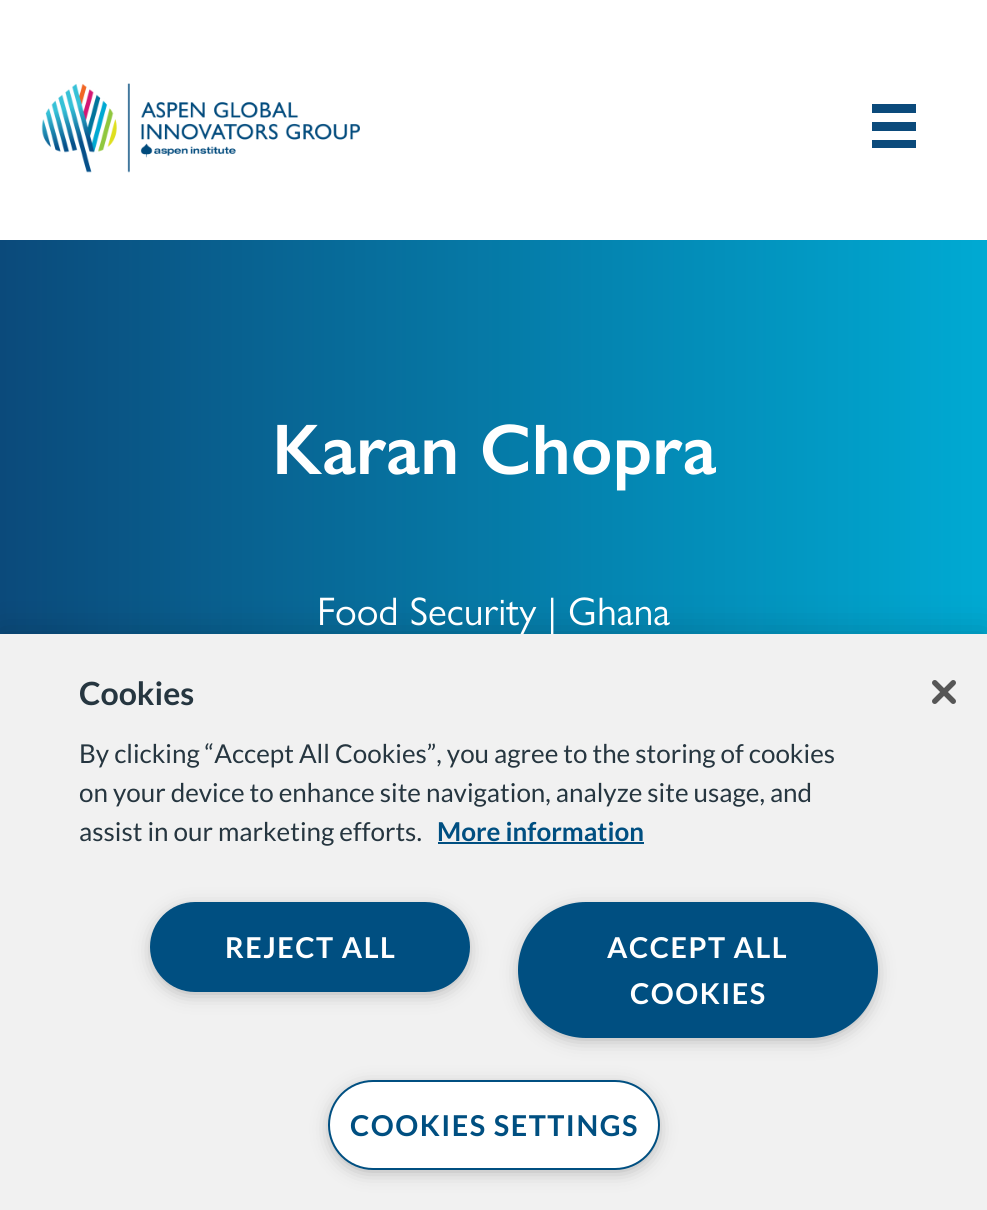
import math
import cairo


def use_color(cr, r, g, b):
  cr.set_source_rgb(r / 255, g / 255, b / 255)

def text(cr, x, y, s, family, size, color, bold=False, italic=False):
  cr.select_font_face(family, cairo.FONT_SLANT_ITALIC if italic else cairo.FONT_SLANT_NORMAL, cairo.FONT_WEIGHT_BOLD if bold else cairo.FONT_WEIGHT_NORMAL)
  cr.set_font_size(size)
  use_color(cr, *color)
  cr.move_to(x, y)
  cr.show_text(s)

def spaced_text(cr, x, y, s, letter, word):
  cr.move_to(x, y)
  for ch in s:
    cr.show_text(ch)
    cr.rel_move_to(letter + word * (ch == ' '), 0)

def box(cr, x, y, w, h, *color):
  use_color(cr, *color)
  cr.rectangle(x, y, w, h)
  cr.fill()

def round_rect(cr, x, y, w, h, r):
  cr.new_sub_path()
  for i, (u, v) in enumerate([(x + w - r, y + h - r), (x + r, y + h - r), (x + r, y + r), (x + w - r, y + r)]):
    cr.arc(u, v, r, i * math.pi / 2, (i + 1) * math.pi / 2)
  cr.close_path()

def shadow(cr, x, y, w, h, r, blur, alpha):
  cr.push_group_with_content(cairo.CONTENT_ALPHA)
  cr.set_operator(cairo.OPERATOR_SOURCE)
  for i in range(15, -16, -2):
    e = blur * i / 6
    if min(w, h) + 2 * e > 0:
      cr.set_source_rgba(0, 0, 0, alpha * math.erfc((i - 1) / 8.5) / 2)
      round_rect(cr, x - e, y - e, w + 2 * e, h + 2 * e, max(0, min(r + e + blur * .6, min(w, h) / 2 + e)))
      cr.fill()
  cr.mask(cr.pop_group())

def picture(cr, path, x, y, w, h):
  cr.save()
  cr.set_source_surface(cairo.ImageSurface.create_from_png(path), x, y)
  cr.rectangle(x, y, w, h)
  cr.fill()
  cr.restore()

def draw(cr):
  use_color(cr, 255, 255, 255)
  cr.paint()
  picture(cr, "img_01.png", 41, 83, 319, 90)
  box(cr, 872, 104, 44, 9, 11, 74, 123)
  box(cr, 872, 122, 44, 9, 11, 74, 123)
  box(cr, 872, 140, 44, 8, 11, 74, 123)
  gradient = cairo.LinearGradient(0, 1009, 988, 1009)
  gradient.add_color_stop_rgba(0, 0.043, 0.29, 0.482, 1)
  gradient.add_color_stop_rgba(1, 0, 0.667, 0.827, 1)
  cr.set_source(gradient)
  cr.rectangle(0, 240, 987, 394)
  cr.fill()
  use_color(cr, 0, 0, 0)
  shadow(cr, 0, 634, 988, 576, 0, 18, 0.2)
  text(cr, 272, 474, "Karan Chopra", "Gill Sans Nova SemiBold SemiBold", 72, (255, 255, 255))
  text(cr, 317, 625, "Food Security | Ghana", "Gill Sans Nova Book", 40, (255, 255, 255))
  box(cr, 0, 634, 987, 576, 241, 241, 241)
  text(cr, 79, 705, "Cookies", "Lato", 32, (38, 54, 64), bold=True)
  text(cr, 79, 763, "By clicking “Accept All Cookies”, you agree to the storing of cookies", "Lato", 26, (38, 54, 64))
  text(cr, 79, 802, "on your device to enhance site navigation, analyze site usage, and", "Lato", 26, (38, 54, 64))
  text(cr, 79, 841, "assist in our marketing efforts.", "Lato", 26, (38, 54, 64))
  text(cr, 437, 841, "More information", "Lato", 26, (0, 79, 129), bold=True)
  box(cr, 438, 842, 206, 2, 0, 79, 129)
  use_color(cr, 153, 153, 153)
  shadow(cr, 156, 912, 308, 78, 39, 10, 1)
  use_color(cr, 0, 79, 129)
  round_rect(cr, 151, 903, 318, 88, 44)
  cr.fill_preserve()
  cr.stroke()
  cr.set_font_size(28.75)
  use_color(cr, 255, 255, 255)
  spaced_text(cr, 225, 958, "REJECT ALL", 1.5, 0)
  use_color(cr, 153, 153, 153)
  shadow(cr, 524, 912, 348, 124, 62, 10, 1)
  use_color(cr, 0, 79, 129)
  round_rect(cr, 519, 903, 358, 134, 67)
  cr.fill_preserve()
  cr.stroke()
  use_color(cr, 255, 255, 255)
  spaced_text(cr, 607, 958, "ACCEPT ALL", 1.5, 0)
  spaced_text(cr, 630, 1004, "COOKIES", 1.5, 0)
  use_color(cr, 153, 153, 153)
  shadow(cr, 334, 1090, 320, 78, 39, 10, 1)
  use_color(cr, 255, 255, 255)
  round_rect(cr, 329, 1081, 330, 88, 44)
  cr.fill_preserve()
  use_color(cr, 0, 79, 129)
  cr.stroke()
  spaced_text(cr, 350, 1136, "COOKIES SETTINGS", 1.5, 0)
  picture(cr, "img_02.png", 932, 680, 24, 24)


surface = cairo.ImageSurface(cairo.FORMAT_RGB24, 987, 1210)
cr = cairo.Context(surface)
options = cairo.FontOptions()
options.set_hint_metrics(cairo.HINT_METRICS_OFF)
options.set_hint_style(cairo.HINT_STYLE_NONE)
cr.set_font_options(options)
cr.set_miter_limit(4)
draw(cr)
surface.write_to_png("out.png")
